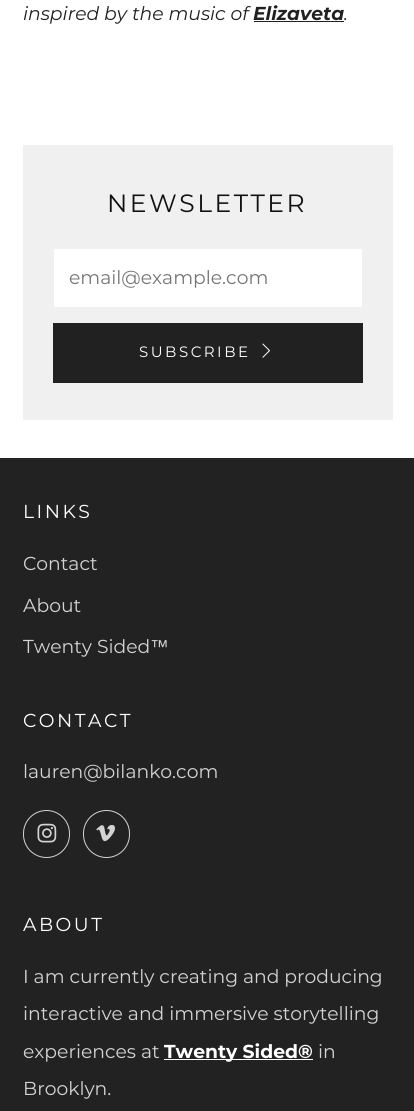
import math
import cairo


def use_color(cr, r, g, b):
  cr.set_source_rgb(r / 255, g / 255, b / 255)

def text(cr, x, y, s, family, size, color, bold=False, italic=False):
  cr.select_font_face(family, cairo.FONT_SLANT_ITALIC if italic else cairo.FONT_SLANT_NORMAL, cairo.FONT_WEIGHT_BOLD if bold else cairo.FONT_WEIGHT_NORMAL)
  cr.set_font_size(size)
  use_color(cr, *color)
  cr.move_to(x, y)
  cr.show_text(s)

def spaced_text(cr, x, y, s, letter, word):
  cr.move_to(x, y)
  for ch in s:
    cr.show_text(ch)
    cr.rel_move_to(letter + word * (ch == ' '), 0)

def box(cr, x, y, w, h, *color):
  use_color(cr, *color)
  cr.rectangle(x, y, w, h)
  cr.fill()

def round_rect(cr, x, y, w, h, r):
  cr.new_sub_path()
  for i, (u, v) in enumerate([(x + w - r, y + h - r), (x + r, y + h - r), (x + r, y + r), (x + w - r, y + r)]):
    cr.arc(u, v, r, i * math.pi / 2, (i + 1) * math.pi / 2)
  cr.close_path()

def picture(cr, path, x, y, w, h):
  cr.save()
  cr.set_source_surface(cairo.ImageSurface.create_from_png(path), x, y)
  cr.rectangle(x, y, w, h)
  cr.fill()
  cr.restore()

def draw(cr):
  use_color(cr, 255, 255, 255)
  cr.paint()
  box(cr, 254, 21, 90, 1, 33, 33, 33)
  box(cr, 23, 145, 370, 275, 240, 240, 240)
  box(cr, 54, 249, 308, 58, 255, 255, 255)
  box(cr, 53, 323, 310, 60, 33, 33, 33)
  picture(cr, "img_01.png", 262, 343, 9, 15)
  box(cr, 0, 458, 414, 653, 34, 34, 34)
  round_rect(cr, 23.5, 810.5, 46, 47, 23)
  use_color(cr, 211, 211, 211)
  cr.set_line_width(1)
  cr.stroke()
  picture(cr, "img_02.png", 37, 823, 20, 20)
  round_rect(cr, 83.5, 810.5, 46, 47, 23)
  cr.stroke()
  picture(cr, "img_03.png", 96, 825, 19, 17)
  box(cr, 164, 1059, 149, 1, 255, 255, 255)
  text(cr, 23, 20, "inspired by the music of", "Montserrat", 18.75, (33, 33, 33), italic=True)
  text(cr, 253, 20, "Elizaveta", "Montserrat", 18.75, (33, 33, 33), bold=True, italic=True)
  text(cr, 344, 20, ".", "Montserrat", 18.75, (33, 33, 33), italic=True)
  cr.select_font_face("Montserrat")
  cr.set_font_size(25)
  use_color(cr, 17, 17, 17)
  spaced_text(cr, 107, 212, "NEWSLETTER", 2.5, 0)
  text(cr, 69, 284, "email@example.com", "Montserrat", 18.75, (117, 117, 117))
  cr.set_font_size(15)
  use_color(cr, 255, 255, 255)
  spaced_text(cr, 139, 357, "SUBSCRIBE", 2.5, 0)
  cr.set_font_size(18.75)
  spaced_text(cr, 23, 518, "LINKS", 2.5, 0)
  text(cr, 23, 570, "Contact", "Montserrat", 18.75, (211, 211, 211))
  text(cr, 23, 612, "About", "Montserrat", 18.75, (211, 211, 211))
  text(cr, 23, 653, "Twenty Sided", "Montserrat", 18.75, (211, 211, 211))
  text(cr, 150, 653, "™", "Liberation Sans", 18.75, (211, 211, 211))
  cr.select_font_face("Montserrat")
  use_color(cr, 255, 255, 255)
  spaced_text(cr, 23, 727, "CONTACT", 2.5, 0)
  text(cr, 23, 778, "lauren@bilanko.com", "Montserrat", 18.75, (211, 211, 211))
  use_color(cr, 255, 255, 255)
  spaced_text(cr, 23, 931, "ABOUT", 2.5, 0)
  text(cr, 23, 983, "I am currently creating and producing", "Montserrat", 18.75, (211, 211, 211))
  text(cr, 23, 1020, "interactive and immersive storytelling", "Montserrat", 18.75, (211, 211, 211))
  text(cr, 23, 1058, "experiences at", "Montserrat", 18.75, (211, 211, 211))
  text(cr, 164, 1058, "Twenty Sided®", "Montserrat", 18.75, (255, 255, 255), bold=True)
  text(cr, 318, 1058, "in", "Montserrat", 18.75, (211, 211, 211))
  text(cr, 23, 1095, "Brooklyn.", "Montserrat", 18.75, (211, 211, 211))


surface = cairo.ImageSurface(cairo.FORMAT_RGB24, 414, 1111)
cr = cairo.Context(surface)
options = cairo.FontOptions()
options.set_hint_metrics(cairo.HINT_METRICS_OFF)
options.set_hint_style(cairo.HINT_STYLE_NONE)
cr.set_font_options(options)
cr.set_miter_limit(4)
draw(cr)
surface.write_to_png("out.png")
